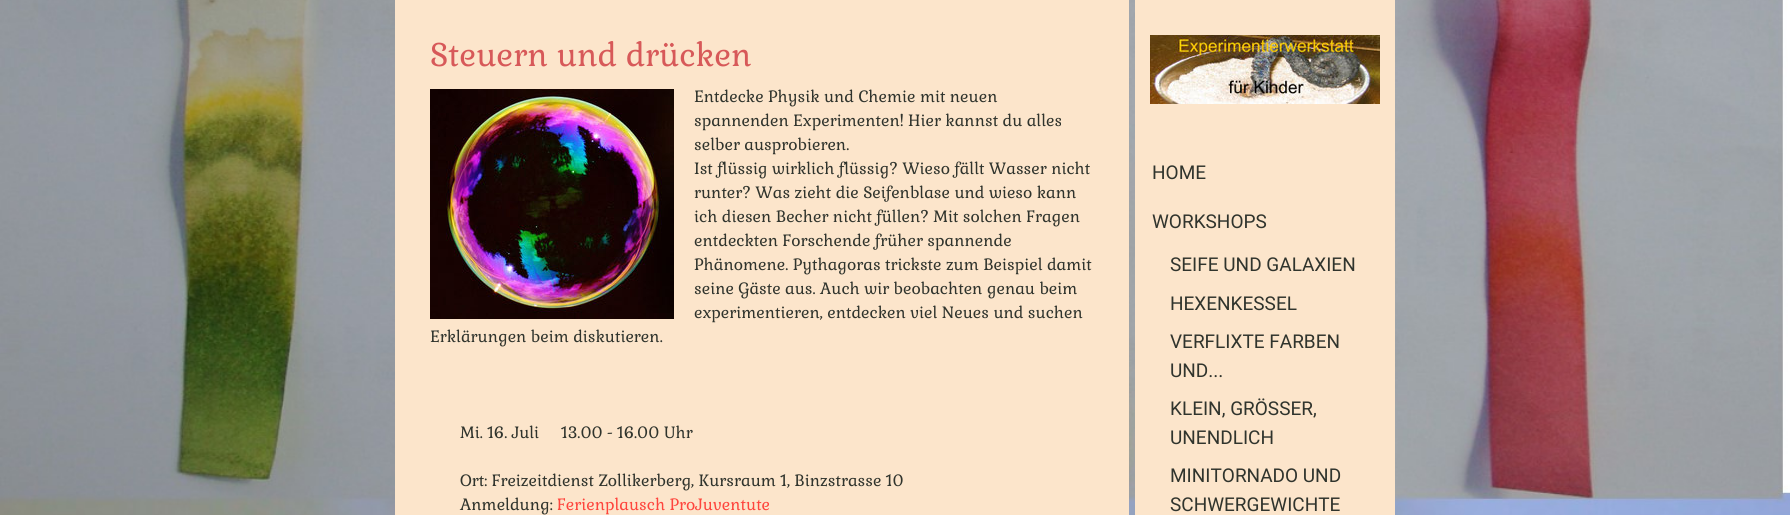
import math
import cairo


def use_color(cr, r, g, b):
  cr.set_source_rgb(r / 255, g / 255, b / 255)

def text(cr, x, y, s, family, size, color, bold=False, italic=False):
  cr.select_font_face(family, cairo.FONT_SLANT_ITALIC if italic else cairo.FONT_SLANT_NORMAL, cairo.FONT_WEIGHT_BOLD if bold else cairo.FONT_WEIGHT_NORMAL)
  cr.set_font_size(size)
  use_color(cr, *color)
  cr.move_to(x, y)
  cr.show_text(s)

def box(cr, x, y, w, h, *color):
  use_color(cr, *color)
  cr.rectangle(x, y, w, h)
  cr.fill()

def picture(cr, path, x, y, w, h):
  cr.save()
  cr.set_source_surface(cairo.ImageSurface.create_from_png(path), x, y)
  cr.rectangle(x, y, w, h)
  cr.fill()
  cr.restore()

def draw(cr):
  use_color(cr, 255, 255, 255)
  cr.paint()
  picture(cr, "img_01.png", 0, 0, 1790, 515)
  box(cr, 395, 0, 734, 515, 252, 229, 203)
  picture(cr, "img_02.png", 430, 89, 244, 230)
  box(cr, 1135, 0, 260, 515, 252, 229, 203)
  picture(cr, "img_03.png", 1150, 35, 230, 69)
  text(cr, 430, 66, "Steuern und drücken", "Gabriela", 32, (215, 89, 89))
  text(cr, 694, 102, "Entdecke Physik und Chemie mit neuen", "Gabriela", 16, (48, 52, 45))
  text(cr, 694, 126, "spannenden Experimenten! Hier kannst du alles", "Gabriela", 16, (48, 52, 45))
  text(cr, 694, 150, "selber ausprobieren.", "Gabriela", 16, (48, 52, 45))
  text(cr, 694, 174, "Ist flüssig wirklich flüssig? Wieso fällt Wasser nicht", "Gabriela", 16, (48, 52, 45))
  text(cr, 694, 198, "runter? Was zieht die Seifenblase und wieso kann", "Gabriela", 16, (48, 52, 45))
  text(cr, 694, 222, "ich diesen Becher nicht füllen? Mit solchen Fragen", "Gabriela", 16, (48, 52, 45))
  text(cr, 694, 246, "entdeckten Forschende früher spannende", "Gabriela", 16, (48, 52, 45))
  text(cr, 694, 270, "Phänomene. Pythagoras trickste zum Beispiel damit", "Gabriela", 16, (48, 52, 45))
  text(cr, 694, 294, "seine Gäste aus. Auch wir beobachten genau beim", "Gabriela", 16, (48, 52, 45))
  text(cr, 694, 318, "experimentieren, entdecken viel Neues und suchen", "Gabriela", 16, (48, 52, 45))
  text(cr, 430, 342, "Erklärungen beim diskutieren.", "Gabriela", 16, (48, 52, 45))
  text(cr, 460, 438, "Mi. 16. Juli     13.00 - 16.00 Uhr", "Gabriela", 16, (48, 52, 45))
  text(cr, 460, 486, "Ort: Freizeitdienst Zollikerberg, Kursraum 1, Binzstrasse 10", "Gabriela", 16, (48, 52, 45))
  text(cr, 460, 510, "Anmeldung:", "Gabriela", 16, (48, 52, 45))
  text(cr, 557, 510, "Ferienplausch ProJuventute", "Gabriela", 16, (254, 69, 61))
  text(cr, 1152, 179, "HOME", "Roboto", 19, (48, 52, 45))
  text(cr, 1152, 228, "WORKSHOPS", "Roboto", 19, (48, 52, 45))
  text(cr, 1170, 271, "SEIFE UND GALAXIEN", "Roboto", 19, (48, 52, 45))
  text(cr, 1170, 310, "HEXENKESSEL", "Roboto", 19, (48, 52, 45))
  text(cr, 1170, 348, "VERFLIXTE FARBEN", "Roboto", 19, (48, 52, 45))
  text(cr, 1170, 377, "UND...", "Roboto", 19, (48, 52, 45))
  text(cr, 1170, 415, "KLEIN, GRÖSSER,", "Roboto", 19, (48, 52, 45))
  text(cr, 1170, 444, "UNENDLICH", "Roboto", 19, (48, 52, 45))
  text(cr, 1170, 482, "MINITORNADO UND", "Roboto", 19, (48, 52, 45))
  text(cr, 1170, 511, "SCHWERGEWICHTE", "Roboto", 19, (48, 52, 45))


surface = cairo.ImageSurface(cairo.FORMAT_RGB24, 1790, 515)
cr = cairo.Context(surface)
options = cairo.FontOptions()
options.set_hint_metrics(cairo.HINT_METRICS_OFF)
options.set_hint_style(cairo.HINT_STYLE_NONE)
cr.set_font_options(options)
cr.set_miter_limit(4)
draw(cr)
surface.write_to_png("out.png")
